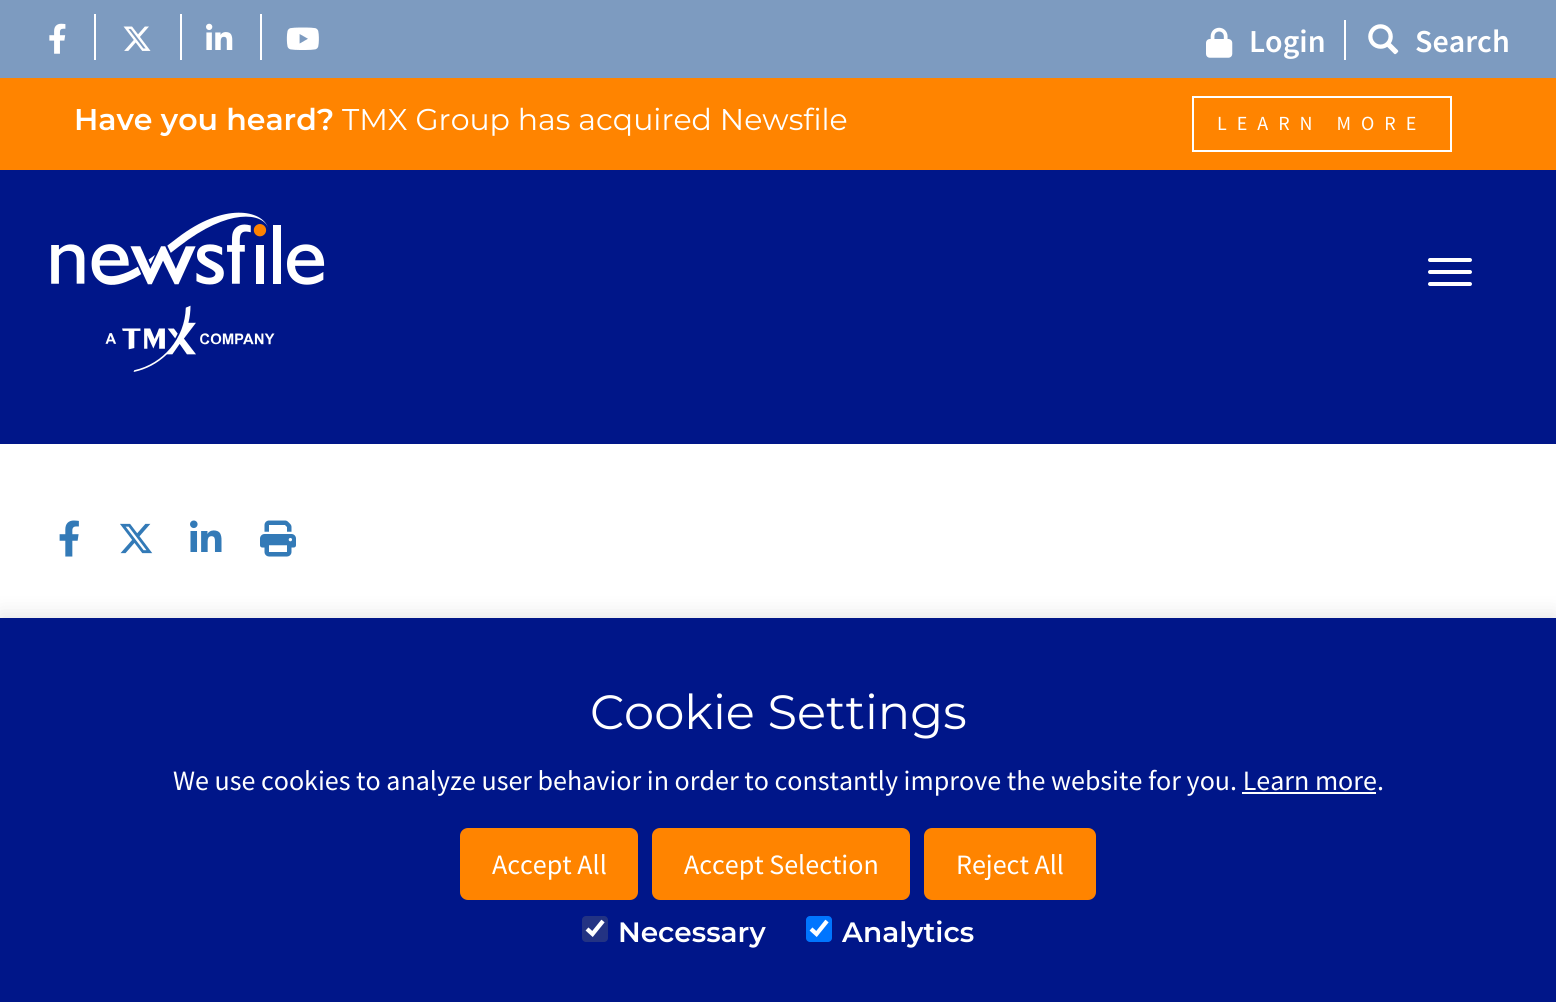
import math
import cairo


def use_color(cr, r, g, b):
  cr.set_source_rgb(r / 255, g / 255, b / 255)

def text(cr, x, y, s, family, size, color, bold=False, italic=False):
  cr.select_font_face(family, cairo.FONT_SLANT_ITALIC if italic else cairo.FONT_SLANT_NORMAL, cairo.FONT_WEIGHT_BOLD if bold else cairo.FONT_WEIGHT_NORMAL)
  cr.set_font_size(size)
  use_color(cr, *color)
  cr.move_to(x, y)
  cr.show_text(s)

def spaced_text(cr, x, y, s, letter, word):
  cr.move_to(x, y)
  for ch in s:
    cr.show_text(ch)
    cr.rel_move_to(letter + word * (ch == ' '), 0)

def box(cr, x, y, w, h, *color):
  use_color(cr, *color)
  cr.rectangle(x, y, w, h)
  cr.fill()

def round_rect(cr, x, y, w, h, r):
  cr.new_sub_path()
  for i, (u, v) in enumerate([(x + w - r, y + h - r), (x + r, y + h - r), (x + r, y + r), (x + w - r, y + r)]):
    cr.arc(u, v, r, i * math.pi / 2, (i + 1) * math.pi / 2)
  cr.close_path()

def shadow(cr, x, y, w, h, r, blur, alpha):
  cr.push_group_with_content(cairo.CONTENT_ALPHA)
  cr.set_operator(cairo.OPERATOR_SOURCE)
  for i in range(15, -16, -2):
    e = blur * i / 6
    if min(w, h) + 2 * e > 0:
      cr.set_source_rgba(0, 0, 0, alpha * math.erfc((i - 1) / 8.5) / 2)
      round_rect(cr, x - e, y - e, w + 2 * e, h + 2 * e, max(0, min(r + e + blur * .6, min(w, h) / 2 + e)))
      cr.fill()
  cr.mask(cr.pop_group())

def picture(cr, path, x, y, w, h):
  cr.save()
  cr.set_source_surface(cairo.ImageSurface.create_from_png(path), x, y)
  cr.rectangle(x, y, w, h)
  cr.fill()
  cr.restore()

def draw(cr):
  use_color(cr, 255, 255, 255)
  cr.paint()
  box(cr, 0, 0, 1556, 78, 125, 155, 192)
  box(cr, 94, 14, 2, 46, 255, 255, 255)
  picture(cr, "img_01.png", 49, 23, 17, 31)
  box(cr, 180, 14, 2, 46, 255, 255, 255)
  picture(cr, "img_02.png", 123, 26, 28, 25)
  box(cr, 260, 14, 2, 46, 255, 255, 255)
  picture(cr, "img_03.png", 206, 23, 27, 27)
  picture(cr, "img_04.png", 286, 27, 33, 23)
  box(cr, 1344, 20, 2, 40, 255, 255, 255)
  picture(cr, "img_05.png", 1206, 27, 27, 31)
  picture(cr, "img_06.png", 1368, 24, 31, 31)
  box(cr, 0, 78, 1556, 92, 255, 132, 0)
  cr.rectangle(1193, 97, 258, 54)
  use_color(cr, 255, 255, 255)
  cr.stroke()
  box(cr, 0, 170, 1556, 274, 0, 22, 137)
  picture(cr, "img_07.png", 51, 212, 274, 160)
  use_color(cr, 255, 255, 255)
  round_rect(cr, 1428, 258, 44, 4, 2)
  cr.fill()
  round_rect(cr, 1428, 270, 44, 4, 2)
  cr.fill()
  round_rect(cr, 1428, 282, 44, 4, 2)
  cr.fill()
  picture(cr, "img_08.png", 59, 520, 20, 37)
  picture(cr, "img_09.png", 120, 523, 33, 31)
  picture(cr, "img_10.png", 190, 520, 32, 32)
  picture(cr, "img_11.png", 260, 520, 36, 37)
  use_color(cr, 0, 0, 0)
  shadow(cr, 0, 614, 1556, 384, 0, 10, 0.1)
  box(cr, 0, 618, 1556, 384, 0, 22, 137)
  box(cr, 1242, 792, 134, 2, 255, 255, 255)
  use_color(cr, 255, 132, 0)
  round_rect(cr, 460, 828, 178, 72, 8)
  cr.fill()
  round_rect(cr, 652, 828, 258, 72, 8)
  cr.fill()
  round_rect(cr, 924, 828, 172, 72, 8)
  cr.fill()
  use_color(cr, 35, 51, 131)
  round_rect(cr, 582, 916, 26, 26, 4)
  cr.fill()
  cr.new_path()
  cr.move_to(587, 929)
  cr.line_to(592.5, 934)
  cr.line_to(603, 921)
  use_color(cr, 255, 255, 255)
  cr.set_line_width(4.2)
  cr.stroke()
  use_color(cr, 0, 117, 255)
  round_rect(cr, 806, 916, 26, 26, 4)
  cr.fill()
  cr.new_path()
  cr.move_to(811, 929)
  cr.line_to(816.5, 934)
  cr.line_to(827, 921)
  use_color(cr, 255, 255, 255)
  cr.stroke()
  text(cr, 1249, 52, "Login", "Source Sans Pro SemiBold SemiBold", 32, (255, 255, 255))
  text(cr, 1415, 52, "Search", "Source Sans Pro SemiBold SemiBold", 32, (255, 255, 255))
  text(cr, 74, 130, "Have you heard?", "Montserrat SemiBold", 30, (255, 255, 255))
  text(cr, 342, 130, "TMX Group has acquired Newsfile", "Montserrat", 30, (255, 255, 255))
  cr.select_font_face("Source Sans Pro")
  cr.set_font_size(20)
  spaced_text(cr, 1217, 130, "LEARN MORE", 10, 0)
  text(cr, 590, 729, "Cookie Settings", "Montserrat", 48, (255, 255, 255))
  text(cr, 173, 790, "We use cookies to analyze user behavior in order to constantly improve the website for you. Learn more.", "Source Sans Pro", 28, (255, 255, 255))
  text(cr, 492, 874, "Accept All", "Source Sans Pro", 28, (255, 255, 255))
  text(cr, 684, 874, "Accept Selection", "Source Sans Pro", 28, (255, 255, 255))
  text(cr, 956, 874, "Reject All", "Source Sans Pro", 28, (255, 255, 255))
  text(cr, 618, 942, "Necessary", "Montserrat SemiBold", 28, (255, 255, 255))
  text(cr, 842, 942, "Analytics", "Montserrat SemiBold", 28, (255, 255, 255))


surface = cairo.ImageSurface(cairo.FORMAT_RGB24, 1556, 1002)
cr = cairo.Context(surface)
options = cairo.FontOptions()
options.set_hint_metrics(cairo.HINT_METRICS_OFF)
options.set_hint_style(cairo.HINT_STYLE_NONE)
cr.set_font_options(options)
cr.set_miter_limit(4)
draw(cr)
surface.write_to_png("out.png")
